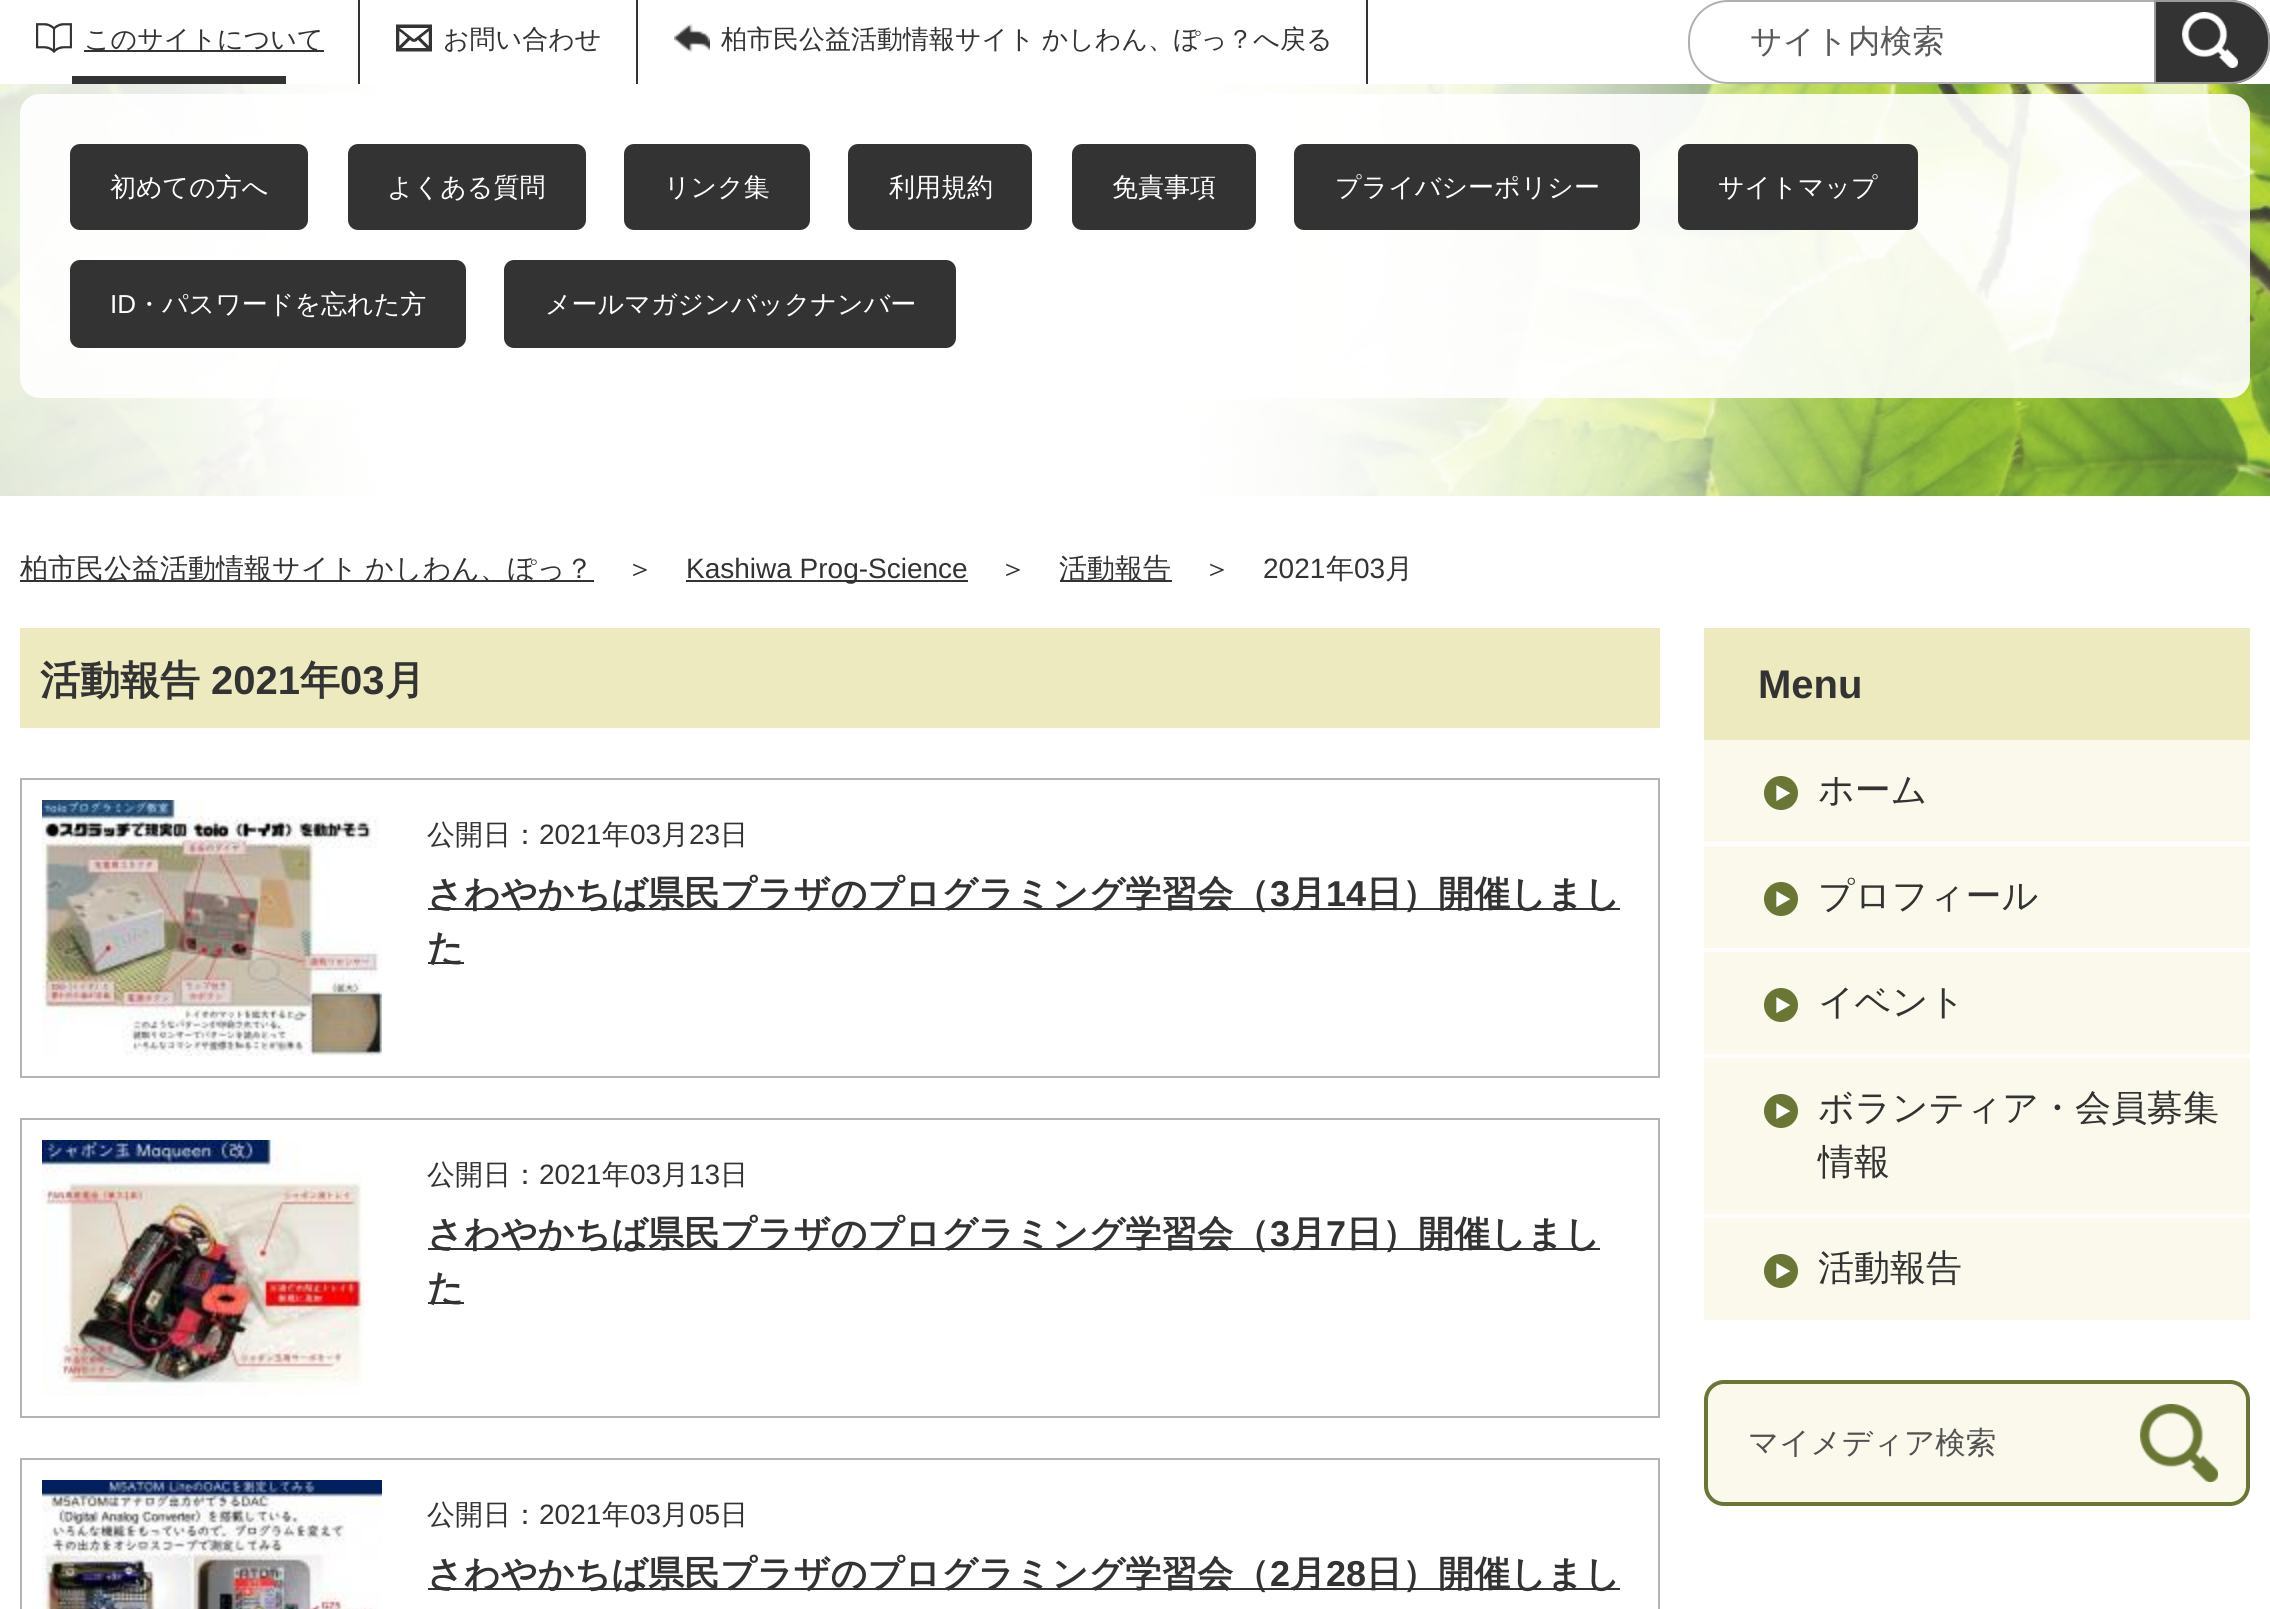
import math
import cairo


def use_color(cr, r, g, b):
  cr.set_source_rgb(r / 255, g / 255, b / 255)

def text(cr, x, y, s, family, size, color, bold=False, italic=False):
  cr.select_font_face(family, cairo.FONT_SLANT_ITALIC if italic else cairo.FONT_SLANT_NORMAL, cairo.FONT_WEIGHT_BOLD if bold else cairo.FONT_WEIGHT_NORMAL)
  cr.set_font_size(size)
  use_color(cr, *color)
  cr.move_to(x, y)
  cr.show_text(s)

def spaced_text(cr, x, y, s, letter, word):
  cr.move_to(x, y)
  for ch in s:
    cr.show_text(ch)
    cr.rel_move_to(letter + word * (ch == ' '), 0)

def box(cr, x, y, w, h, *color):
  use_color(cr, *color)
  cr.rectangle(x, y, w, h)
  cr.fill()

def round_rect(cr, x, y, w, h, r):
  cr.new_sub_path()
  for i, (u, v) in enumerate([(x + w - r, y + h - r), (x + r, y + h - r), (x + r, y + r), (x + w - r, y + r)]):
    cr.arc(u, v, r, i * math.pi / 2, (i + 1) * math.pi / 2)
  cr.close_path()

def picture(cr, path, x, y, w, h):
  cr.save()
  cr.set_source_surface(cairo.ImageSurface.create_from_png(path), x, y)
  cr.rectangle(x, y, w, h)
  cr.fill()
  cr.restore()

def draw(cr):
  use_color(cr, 255, 255, 255)
  cr.paint()
  picture(cr, "img_01.png", 0, 84, 2270, 412)
  use_color(cr, 176, 176, 176)
  cr.set_fill_rule(cairo.FILL_RULE_EVEN_ODD)
  cr.new_path()
  cr.move_to(1728, 0)
  cr.line_to(2154, 0)
  cr.line_to(2154, 84)
  cr.line_to(1728, 84)
  cr.curve_to(1706, 84, 1688, 66, 1688, 44)
  cr.line_to(1688, 40)
  cr.curve_to(1688, 18, 1706, 0, 1728, 0)
  cr.close_path()
  cr.move_to(1728, 2)
  cr.line_to(2154, 2)
  cr.line_to(2154, 82)
  cr.line_to(1728, 82)
  cr.curve_to(1707, 82, 1690, 65, 1690, 44)
  cr.line_to(1690, 40)
  cr.curve_to(1690, 19, 1707, 2, 1728, 2)
  cr.close_path()
  cr.fill()
  use_color(cr, 51, 51, 51)
  cr.new_path()
  cr.move_to(2154, 0)
  cr.line_to(2230, 0)
  cr.curve_to(2252, 0, 2270, 18, 2270, 40)
  cr.line_to(2270, 44)
  cr.curve_to(2270, 66, 2252, 84, 2230, 84)
  cr.line_to(2154, 84)
  cr.close_path()
  cr.fill()
  cr.new_path()
  cr.move_to(2155, 1)
  cr.line_to(2230, 1)
  cr.curve_to(2251.5, 1, 2269, 18.5, 2269, 40)
  cr.line_to(2269, 44)
  cr.curve_to(2269, 65.5, 2251.5, 83, 2230, 83)
  cr.line_to(2155, 83)
  cr.close_path()
  cr.set_source_rgba(0.655, 0.655, 0.655, 0.9)
  cr.stroke()
  picture(cr, "img_02.png", 2182, 12, 56, 56)
  box(cr, 636, 0, 2, 84, 51, 51, 51)
  picture(cr, "img_03.png", 396, 24, 36, 28)
  box(cr, 1366, 0, 2, 84, 51, 51, 51)
  picture(cr, "img_04.png", 674, 23, 36, 30)
  box(cr, 358, 0, 2, 84, 51, 51, 51)
  picture(cr, "img_05.png", 36, 23, 36, 30)
  box(cr, 84, 50, 240, 2, 51, 51, 51)
  box(cr, 72, 76, 214, 8, 51, 51, 51)
  cr.set_source_rgba(1, 1, 1, 0.9)
  round_rect(cr, 20, 94, 2230, 304, 20)
  cr.fill()
  use_color(cr, 51, 51, 51)
  round_rect(cr, 70, 144, 238, 86, 10)
  cr.fill()
  round_rect(cr, 348, 144, 238, 86, 10)
  cr.fill()
  round_rect(cr, 624, 144, 186, 86, 10)
  cr.fill()
  round_rect(cr, 848, 144, 184, 86, 10)
  cr.fill()
  round_rect(cr, 1072, 144, 184, 86, 10)
  cr.fill()
  round_rect(cr, 1294, 144, 346, 86, 10)
  cr.fill()
  round_rect(cr, 1678, 144, 240, 86, 10)
  cr.fill()
  round_rect(cr, 70, 260, 396, 88, 10)
  cr.fill()
  round_rect(cr, 504, 260, 452, 88, 10)
  cr.fill()
  box(cr, 20, 580, 574, 2, 51, 51, 51)
  box(cr, 686, 580, 282, 2, 51, 51, 51)
  box(cr, 1060, 580, 112, 2, 51, 51, 51)
  box(cr, 20, 628, 1640, 100, 238, 234, 191)
  cr.rectangle(21, 779, 1638, 298)
  use_color(cr, 180, 180, 180)
  cr.stroke()
  picture(cr, "img_06.png", 42, 800, 340, 256)
  box(cr, 428, 908, 1192, 2, 51, 51, 51)
  box(cr, 428, 962, 36, 2, 51, 51, 51)
  cr.rectangle(21, 1119, 1638, 298)
  use_color(cr, 180, 180, 180)
  cr.stroke()
  picture(cr, "img_07.png", 42, 1140, 323, 256)
  box(cr, 428, 1248, 1172, 2, 51, 51, 51)
  box(cr, 428, 1302, 36, 2, 51, 51, 51)
  cr.rectangle(21, 1459, 1638, 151)
  use_color(cr, 180, 180, 180)
  cr.stroke()
  picture(cr, "img_08.png", 42, 1480, 340, 129)
  box(cr, 428, 1588, 1192, 2, 51, 51, 51)
  box(cr, 1704, 628, 546, 112, 238, 234, 191)
  box(cr, 1704, 740, 546, 102, 250, 249, 236)
  picture(cr, "img_09.png", 1764, 776, 34, 34)
  box(cr, 1704, 846, 546, 102, 250, 249, 236)
  picture(cr, "img_09.png", 1764, 882, 34, 34)
  box(cr, 1704, 952, 546, 102, 250, 249, 236)
  picture(cr, "img_09.png", 1764, 988, 34, 34)
  box(cr, 1704, 1058, 546, 156, 250, 249, 236)
  picture(cr, "img_09.png", 1764, 1094, 34, 34)
  box(cr, 1704, 1218, 546, 102, 250, 249, 236)
  picture(cr, "img_09.png", 1764, 1254, 34, 34)
  round_rect(cr, 1706, 1382, 542, 122, 18)
  cr.fill_preserve()
  use_color(cr, 105, 118, 52)
  cr.set_line_width(4)
  cr.stroke()
  picture(cr, "img_10.png", 2140, 1404, 78, 78)
  text(cr, 1750, 52, "サイト内検索", "WenQuanYi Zen Hei Medium", 32, (89, 89, 89))
  text(cr, 443, 48, "お問い合わせ", "WenQuanYi Zen Hei Medium", 26, (51, 51, 51))
  spaced_text(cr, 721, 48, "柏市民公益活動情報サイト かしわん、ぽっ？へ戻る", 0, -1)
  text(cr, 84, 48, "このサイトについて", "WenQuanYi Zen Hei Medium", 26, (51, 51, 51))
  text(cr, 110, 196, "初めての方へ", "WenQuanYi Zen Hei Medium", 26, (255, 255, 255))
  text(cr, 387, 196, "よくある質問", "WenQuanYi Zen Hei Medium", 26, (255, 255, 255))
  text(cr, 664, 196, "リンク集", "WenQuanYi Zen Hei Medium", 26, (255, 255, 255))
  text(cr, 889, 196, "利用規約", "WenQuanYi Zen Hei Medium", 26, (255, 255, 255))
  text(cr, 1112, 196, "免責事項", "WenQuanYi Zen Hei Medium", 26, (255, 255, 255))
  text(cr, 1335, 196, "プライバシーポリシー", "WenQuanYi Zen Hei Medium", 26, (255, 255, 255))
  text(cr, 1718, 196, "サイトマップ", "WenQuanYi Zen Hei Medium", 26, (255, 255, 255))
  text(cr, 110, 313, "ID", "Liberation Sans", 26, (255, 255, 255))
  text(cr, 136, 313, "・パスワードを忘れた方", "WenQuanYi Zen Hei Medium", 26, (255, 255, 255))
  text(cr, 545, 313, "メールマガジンバックナンバー", "WenQuanYi Zen Hei Medium", 26, (255, 255, 255))
  cr.set_font_size(28)
  use_color(cr, 51, 51, 51)
  spaced_text(cr, 20, 578, "柏市民公益活動情報サイト かしわん、ぽっ？", 0, -1)
  text(cr, 626, 578, "＞", "WenQuanYi Zen Hei Medium", 28, (51, 51, 51))
  text(cr, 686, 578, "Kashiwa Prog-Science", "Liberation Sans", 28, (51, 51, 51))
  text(cr, 999, 578, "＞", "WenQuanYi Zen Hei Medium", 28, (51, 51, 51))
  text(cr, 1059, 578, "活動報告", "WenQuanYi Zen Hei Medium", 28, (51, 51, 51))
  text(cr, 1203, 578, "＞", "WenQuanYi Zen Hei Medium", 28, (51, 51, 51))
  text(cr, 1263, 578, "2021", "Liberation Sans", 28, (51, 51, 51))
  text(cr, 1326, 578, "年", "WenQuanYi Zen Hei Medium", 28, (51, 51, 51))
  text(cr, 1354, 578, "03", "Liberation Sans", 28, (51, 51, 51))
  text(cr, 1385, 578, "月", "WenQuanYi Zen Hei Medium", 28, (51, 51, 51))
  text(cr, 40, 694, "活動報告", "WenQuanYi Zen Hei", 40, (51, 51, 51), bold=True)
  text(cr, 211, 694, "2021", "Liberation Sans", 40, (51, 51, 51), bold=True)
  text(cr, 300, 694, "年", "WenQuanYi Zen Hei", 40, (51, 51, 51), bold=True)
  text(cr, 340, 694, "03", "Liberation Sans", 40, (51, 51, 51), bold=True)
  text(cr, 385, 694, "月", "WenQuanYi Zen Hei", 40, (51, 51, 51), bold=True)
  text(cr, 427, 844, "公開日：", "WenQuanYi Zen Hei Medium", 28, (51, 51, 51))
  text(cr, 539, 844, "2021", "Liberation Sans", 28, (51, 51, 51))
  text(cr, 602, 844, "年", "WenQuanYi Zen Hei Medium", 28, (51, 51, 51))
  text(cr, 630, 844, "03", "Liberation Sans", 28, (51, 51, 51))
  text(cr, 661, 844, "月", "WenQuanYi Zen Hei Medium", 28, (51, 51, 51))
  text(cr, 689, 844, "23", "Liberation Sans", 28, (51, 51, 51))
  text(cr, 720, 844, "日", "WenQuanYi Zen Hei Medium", 28, (51, 51, 51))
  text(cr, 427, 906, "さわやかちば県民プラザのプログラミング学習会（", "WenQuanYi Zen Hei", 36, (51, 51, 51), bold=True)
  text(cr, 1270, 906, "3", "Liberation Sans", 36, (51, 51, 51), bold=True)
  text(cr, 1290, 906, "月", "WenQuanYi Zen Hei", 36, (51, 51, 51), bold=True)
  text(cr, 1326, 906, "14", "Liberation Sans", 36, (51, 51, 51), bold=True)
  text(cr, 1366, 906, "日）開催しまし", "WenQuanYi Zen Hei", 36, (51, 51, 51), bold=True)
  text(cr, 427, 960, "た", "WenQuanYi Zen Hei", 36, (51, 51, 51), bold=True)
  text(cr, 427, 1184, "公開日：", "WenQuanYi Zen Hei Medium", 28, (51, 51, 51))
  text(cr, 539, 1184, "2021", "Liberation Sans", 28, (51, 51, 51))
  text(cr, 602, 1184, "年", "WenQuanYi Zen Hei Medium", 28, (51, 51, 51))
  text(cr, 630, 1184, "03", "Liberation Sans", 28, (51, 51, 51))
  text(cr, 661, 1184, "月", "WenQuanYi Zen Hei Medium", 28, (51, 51, 51))
  text(cr, 689, 1184, "13", "Liberation Sans", 28, (51, 51, 51))
  text(cr, 720, 1184, "日", "WenQuanYi Zen Hei Medium", 28, (51, 51, 51))
  text(cr, 427, 1246, "さわやかちば県民プラザのプログラミング学習会（", "WenQuanYi Zen Hei", 36, (51, 51, 51), bold=True)
  text(cr, 1270, 1246, "3", "Liberation Sans", 36, (51, 51, 51), bold=True)
  text(cr, 1290, 1246, "月", "WenQuanYi Zen Hei", 36, (51, 51, 51), bold=True)
  text(cr, 1326, 1246, "7", "Liberation Sans", 36, (51, 51, 51), bold=True)
  text(cr, 1346, 1246, "日）開催しまし", "WenQuanYi Zen Hei", 36, (51, 51, 51), bold=True)
  text(cr, 427, 1300, "た", "WenQuanYi Zen Hei", 36, (51, 51, 51), bold=True)
  text(cr, 427, 1524, "公開日：", "WenQuanYi Zen Hei Medium", 28, (51, 51, 51))
  text(cr, 539, 1524, "2021", "Liberation Sans", 28, (51, 51, 51))
  text(cr, 602, 1524, "年", "WenQuanYi Zen Hei Medium", 28, (51, 51, 51))
  text(cr, 630, 1524, "03", "Liberation Sans", 28, (51, 51, 51))
  text(cr, 661, 1524, "月", "WenQuanYi Zen Hei Medium", 28, (51, 51, 51))
  text(cr, 689, 1524, "05", "Liberation Sans", 28, (51, 51, 51))
  text(cr, 720, 1524, "日", "WenQuanYi Zen Hei Medium", 28, (51, 51, 51))
  text(cr, 427, 1586, "さわやかちば県民プラザのプログラミング学習会（", "WenQuanYi Zen Hei", 36, (51, 51, 51), bold=True)
  text(cr, 1270, 1586, "2", "Liberation Sans", 36, (51, 51, 51), bold=True)
  text(cr, 1290, 1586, "月", "WenQuanYi Zen Hei", 36, (51, 51, 51), bold=True)
  text(cr, 1326, 1586, "28", "Liberation Sans", 36, (51, 51, 51), bold=True)
  text(cr, 1366, 1586, "日）開催しまし", "WenQuanYi Zen Hei", 36, (51, 51, 51), bold=True)
  text(cr, 1758, 698, "Menu", "Liberation Sans", 40, (51, 51, 51), bold=True)
  text(cr, 1818, 802, "ホーム", "WenQuanYi Zen Hei Medium", 36, (51, 51, 51))
  text(cr, 1818, 908, "プロフィール", "WenQuanYi Zen Hei Medium", 36, (51, 51, 51))
  text(cr, 1818, 1014, "イベント", "WenQuanYi Zen Hei Medium", 36, (51, 51, 51))
  text(cr, 1818, 1120, "ボランティア・会員募集", "WenQuanYi Zen Hei Medium", 36, (51, 51, 51))
  text(cr, 1818, 1174, "情報", "WenQuanYi Zen Hei Medium", 36, (51, 51, 51))
  text(cr, 1818, 1280, "活動報告", "WenQuanYi Zen Hei Medium", 36, (51, 51, 51))
  text(cr, 1748, 1453, "マイメディア検索", "WenQuanYi Zen Hei Medium", 30.5, (81, 81, 81))


surface = cairo.ImageSurface(cairo.FORMAT_RGB24, 2270, 1609)
cr = cairo.Context(surface)
options = cairo.FontOptions()
options.set_hint_metrics(cairo.HINT_METRICS_OFF)
options.set_hint_style(cairo.HINT_STYLE_NONE)
cr.set_font_options(options)
cr.set_miter_limit(4)
draw(cr)
surface.write_to_png("out.png")
